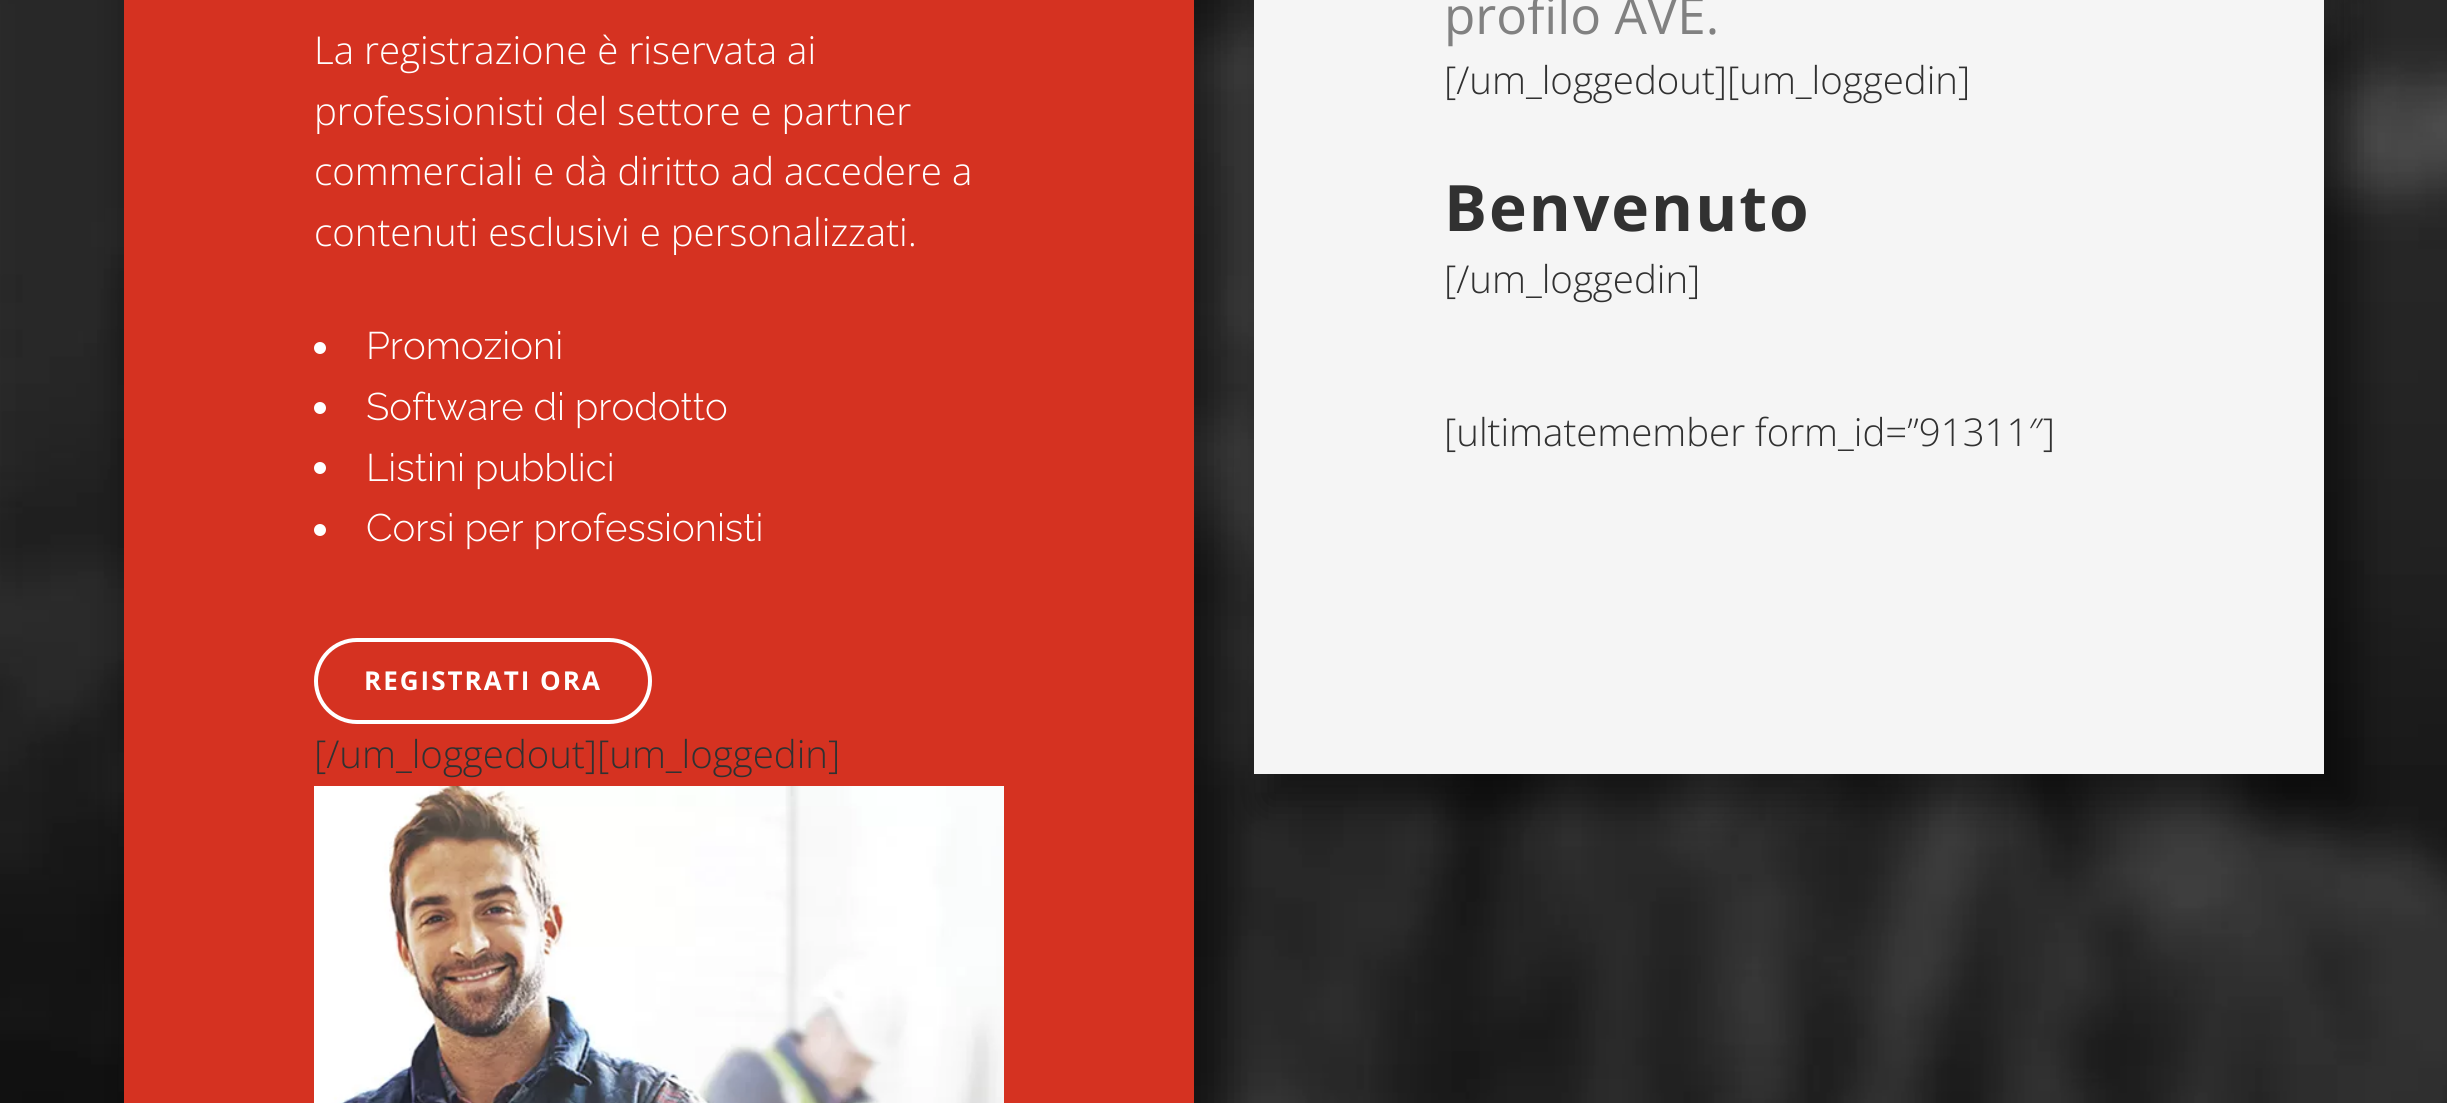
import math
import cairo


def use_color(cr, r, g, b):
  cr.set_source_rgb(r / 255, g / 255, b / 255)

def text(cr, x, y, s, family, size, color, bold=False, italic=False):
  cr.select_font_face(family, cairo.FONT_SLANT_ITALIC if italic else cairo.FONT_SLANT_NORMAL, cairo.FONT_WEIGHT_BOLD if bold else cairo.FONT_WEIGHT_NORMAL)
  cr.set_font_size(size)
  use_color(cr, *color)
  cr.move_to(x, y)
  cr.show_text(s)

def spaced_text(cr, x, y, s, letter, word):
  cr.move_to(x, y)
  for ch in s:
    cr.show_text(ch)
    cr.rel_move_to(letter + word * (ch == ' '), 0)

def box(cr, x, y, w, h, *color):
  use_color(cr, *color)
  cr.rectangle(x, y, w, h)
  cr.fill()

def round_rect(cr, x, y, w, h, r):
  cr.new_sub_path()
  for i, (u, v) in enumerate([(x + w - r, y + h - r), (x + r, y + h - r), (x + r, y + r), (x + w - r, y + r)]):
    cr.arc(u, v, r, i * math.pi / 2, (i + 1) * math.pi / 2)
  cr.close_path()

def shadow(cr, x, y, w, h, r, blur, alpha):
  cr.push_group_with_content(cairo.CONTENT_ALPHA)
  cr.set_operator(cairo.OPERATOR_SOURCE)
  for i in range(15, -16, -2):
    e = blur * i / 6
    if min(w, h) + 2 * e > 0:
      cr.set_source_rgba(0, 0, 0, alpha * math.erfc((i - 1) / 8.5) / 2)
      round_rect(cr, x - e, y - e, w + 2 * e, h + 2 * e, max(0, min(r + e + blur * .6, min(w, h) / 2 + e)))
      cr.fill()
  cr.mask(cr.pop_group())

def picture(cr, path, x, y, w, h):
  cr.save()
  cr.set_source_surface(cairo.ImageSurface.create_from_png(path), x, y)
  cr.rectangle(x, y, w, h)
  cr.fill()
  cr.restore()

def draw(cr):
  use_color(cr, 255, 255, 255)
  cr.paint()
  picture(cr, "img_01.png", 0, 0, 2447, 1103)
  use_color(cr, 0, 0, 0)
  shadow(cr, 134, -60, 1090, 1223, 0, 20, 0.5)
  box(cr, 124, 0, 1070, 1103, 213, 50, 33)
  use_color(cr, 255, 255, 255)
  cr.arc(320, 348, 6, 0, 2 * math.pi)
  cr.fill()
  cr.arc(320, 408, 6, 0, 2 * math.pi)
  cr.fill()
  cr.arc(320, 468, 6, 0, 2 * math.pi)
  cr.fill()
  cr.arc(320, 530, 6, 0, 2 * math.pi)
  cr.fill()
  round_rect(cr, 316, 640, 334, 82, 41)
  cr.set_line_width(4)
  cr.stroke()
  picture(cr, "img_02.png", 314, 786, 690, 317)
  use_color(cr, 0, 0, 0)
  shadow(cr, 1264, -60, 1090, 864, 0, 20, 0.5)
  box(cr, 1254, 0, 1070, 774, 245, 245, 245)
  text(cr, 314, 64, "La registrazione è riservata ai", "Open Sans Light", 38.4, (255, 255, 255))
  text(cr, 314, 125, "professionisti del settore e partner", "Open Sans Light", 38.4, (255, 255, 255))
  text(cr, 314, 185, "commerciali e dà diritto ad accedere a", "Open Sans Light", 38.4, (255, 255, 255))
  text(cr, 314, 246, "contenuti esclusivi e personalizzati.", "Open Sans Light", 38.4, (255, 255, 255))
  text(cr, 366, 359, "Promozioni", "Raleway Light", 38.4, (255, 255, 255))
  text(cr, 366, 420, "Software di prodotto", "Raleway Light", 38.4, (255, 255, 255))
  text(cr, 366, 481, "Listini pubblici", "Raleway Light", 38.4, (255, 255, 255))
  text(cr, 366, 541, "Corsi per professionisti", "Raleway Light", 38.4, (255, 255, 255))
  cr.select_font_face("Open Sans", cairo.FONT_SLANT_NORMAL, cairo.FONT_WEIGHT_BOLD)
  cr.set_font_size(26)
  spaced_text(cr, 364, 690, "REGISTRATI ORA", 2, 0)
  text(cr, 314, 768, "[/um_loggedout][um_loggedin]", "Open Sans Light", 38.4, (49, 49, 49))
  text(cr, 1444, 34, "profilo AVE.", "Open Sans", 51.25, (129, 129, 129))
  text(cr, 1444, 94, "[/um_loggedout][um_loggedin]", "Open Sans Light", 38.4, (49, 49, 49))
  cr.select_font_face("Open Sans", cairo.FONT_SLANT_NORMAL, cairo.FONT_WEIGHT_BOLD)
  cr.set_font_size(64)
  spaced_text(cr, 1444, 231, "Benvenuto", 2, 0)
  text(cr, 1444, 293, "[/um_loggedin]", "Open Sans Light", 38.4, (49, 49, 49))
  text(cr, 1444, 446, "[ultimatemember form_id=”91311″]", "Open Sans Light", 38.4, (49, 49, 49))


surface = cairo.ImageSurface(cairo.FORMAT_RGB24, 2447, 1103)
cr = cairo.Context(surface)
options = cairo.FontOptions()
options.set_hint_metrics(cairo.HINT_METRICS_OFF)
options.set_hint_style(cairo.HINT_STYLE_NONE)
cr.set_font_options(options)
cr.set_miter_limit(4)
draw(cr)
surface.write_to_png("out.png")
